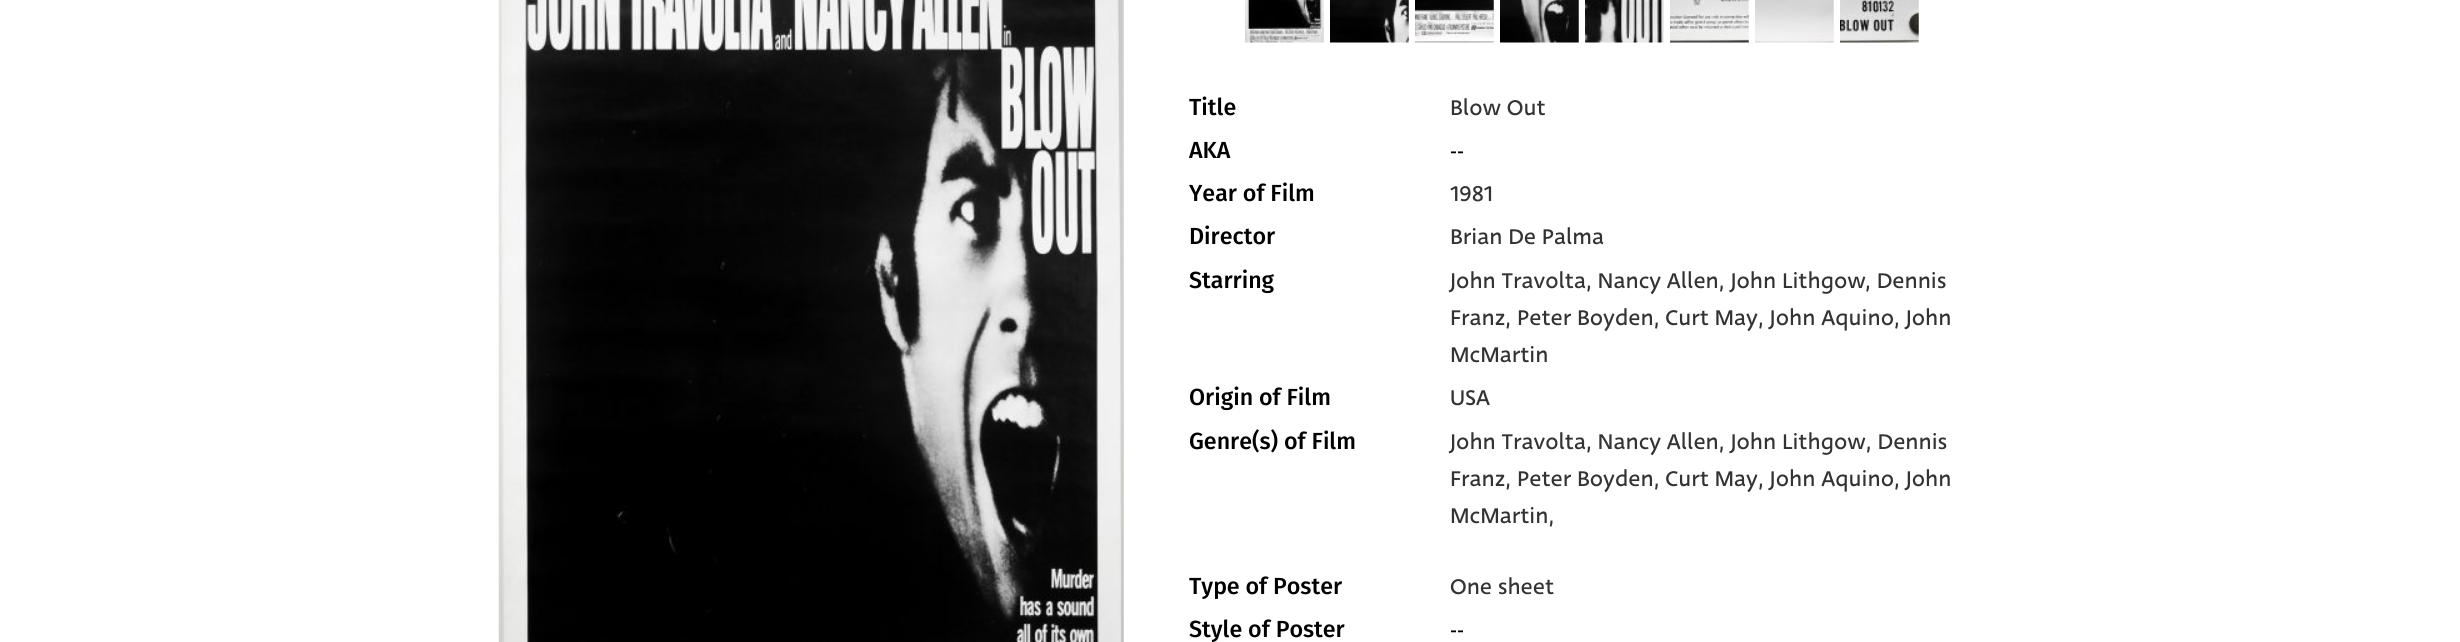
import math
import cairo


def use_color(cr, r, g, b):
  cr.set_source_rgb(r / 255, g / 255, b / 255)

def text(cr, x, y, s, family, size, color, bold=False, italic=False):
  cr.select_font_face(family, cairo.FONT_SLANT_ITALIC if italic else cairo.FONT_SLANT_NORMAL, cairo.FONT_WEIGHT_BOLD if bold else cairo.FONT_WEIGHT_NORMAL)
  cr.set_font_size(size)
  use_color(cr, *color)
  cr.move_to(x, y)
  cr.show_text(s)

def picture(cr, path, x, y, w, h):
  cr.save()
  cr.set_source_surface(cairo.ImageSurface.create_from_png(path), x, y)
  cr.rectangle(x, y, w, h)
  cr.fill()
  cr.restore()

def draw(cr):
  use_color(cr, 255, 255, 255)
  cr.paint()
  picture(cr, "img_01.png", 498, 0, 626, 642)
  picture(cr, "img_02.png", 1245, 0, 79, 43)
  picture(cr, "img_03.png", 1330, 0, 79, 43)
  picture(cr, "img_04.png", 1415, 0, 79, 43)
  picture(cr, "img_05.png", 1500, 0, 79, 43)
  picture(cr, "img_06.png", 1585, 0, 79, 43)
  picture(cr, "img_07.png", 1670, 0, 79, 43)
  picture(cr, "img_08.png", 1755, 0, 79, 43)
  picture(cr, "img_09.png", 1840, 0, 79, 43)
  text(cr, 1189, 115, "Title", "Fira Sans Medium", 23.3, (0, 0, 0))
  text(cr, 1450, 115, "Blow Out", "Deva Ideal", 23.3, (51, 51, 51))
  text(cr, 1189, 158, "AKA", "Fira Sans Medium", 23.3, (0, 0, 0))
  text(cr, 1450, 158, "--", "Deva Ideal", 23.3, (0, 0, 0))
  text(cr, 1189, 201, "Year of Film", "Fira Sans Medium", 23.3, (0, 0, 0))
  text(cr, 1450, 201, "1981", "Deva Ideal", 23.3, (51, 51, 51))
  text(cr, 1189, 244, "Director", "Fira Sans Medium", 23.3, (0, 0, 0))
  text(cr, 1450, 244, "Brian De Palma", "Deva Ideal", 23.3, (51, 51, 51))
  text(cr, 1189, 288, "Starring", "Fira Sans Medium", 23.3, (0, 0, 0))
  text(cr, 1450, 288, "John Travolta, Nancy Allen, John Lithgow", "Deva Ideal", 23.3, (51, 51, 51))
  text(cr, 1865, 288, ", Dennis", "Deva Ideal", 23.3, (51, 51, 51))
  text(cr, 1450, 325, "Franz, Peter Boyden, Curt May, John Aquino", "Deva Ideal", 23.3, (51, 51, 51))
  text(cr, 1894, 325, ", John", "Deva Ideal", 23.3, (51, 51, 51))
  text(cr, 1450, 362, "McMartin", "Deva Ideal", 23.3, (51, 51, 51))
  text(cr, 1189, 405, "Origin of Film", "Fira Sans Medium", 23.3, (0, 0, 0))
  text(cr, 1450, 405, "USA", "Deva Ideal", 23.3, (51, 51, 51))
  text(cr, 1189, 449, "Genre(s) of Film", "Fira Sans Medium", 23.3, (0, 0, 0))
  text(cr, 1450, 449, "John Travolta, Nancy Allen, John Lithgow, Dennis", "Deva Ideal", 23.3, (51, 51, 51))
  text(cr, 1450, 486, "Franz, Peter Boyden, Curt May, John Aquino, John", "Deva Ideal", 23.3, (51, 51, 51))
  text(cr, 1450, 523, "McMartin,", "Deva Ideal", 23.3, (51, 51, 51))
  text(cr, 1189, 594, "Type of Poster", "Fira Sans Medium", 23.3, (0, 0, 0))
  text(cr, 1450, 594, "One sheet", "Deva Ideal", 23.3, (51, 51, 51))
  text(cr, 1189, 637, "Style of Poster", "Fira Sans Medium", 23.3, (0, 0, 0))
  text(cr, 1450, 637, "--", "Deva Ideal", 23.3, (0, 0, 0))


surface = cairo.ImageSurface(cairo.FORMAT_RGB24, 2460, 642)
cr = cairo.Context(surface)
options = cairo.FontOptions()
options.set_hint_metrics(cairo.HINT_METRICS_OFF)
options.set_hint_style(cairo.HINT_STYLE_NONE)
cr.set_font_options(options)
cr.set_miter_limit(4)
draw(cr)
surface.write_to_png("out.png")
